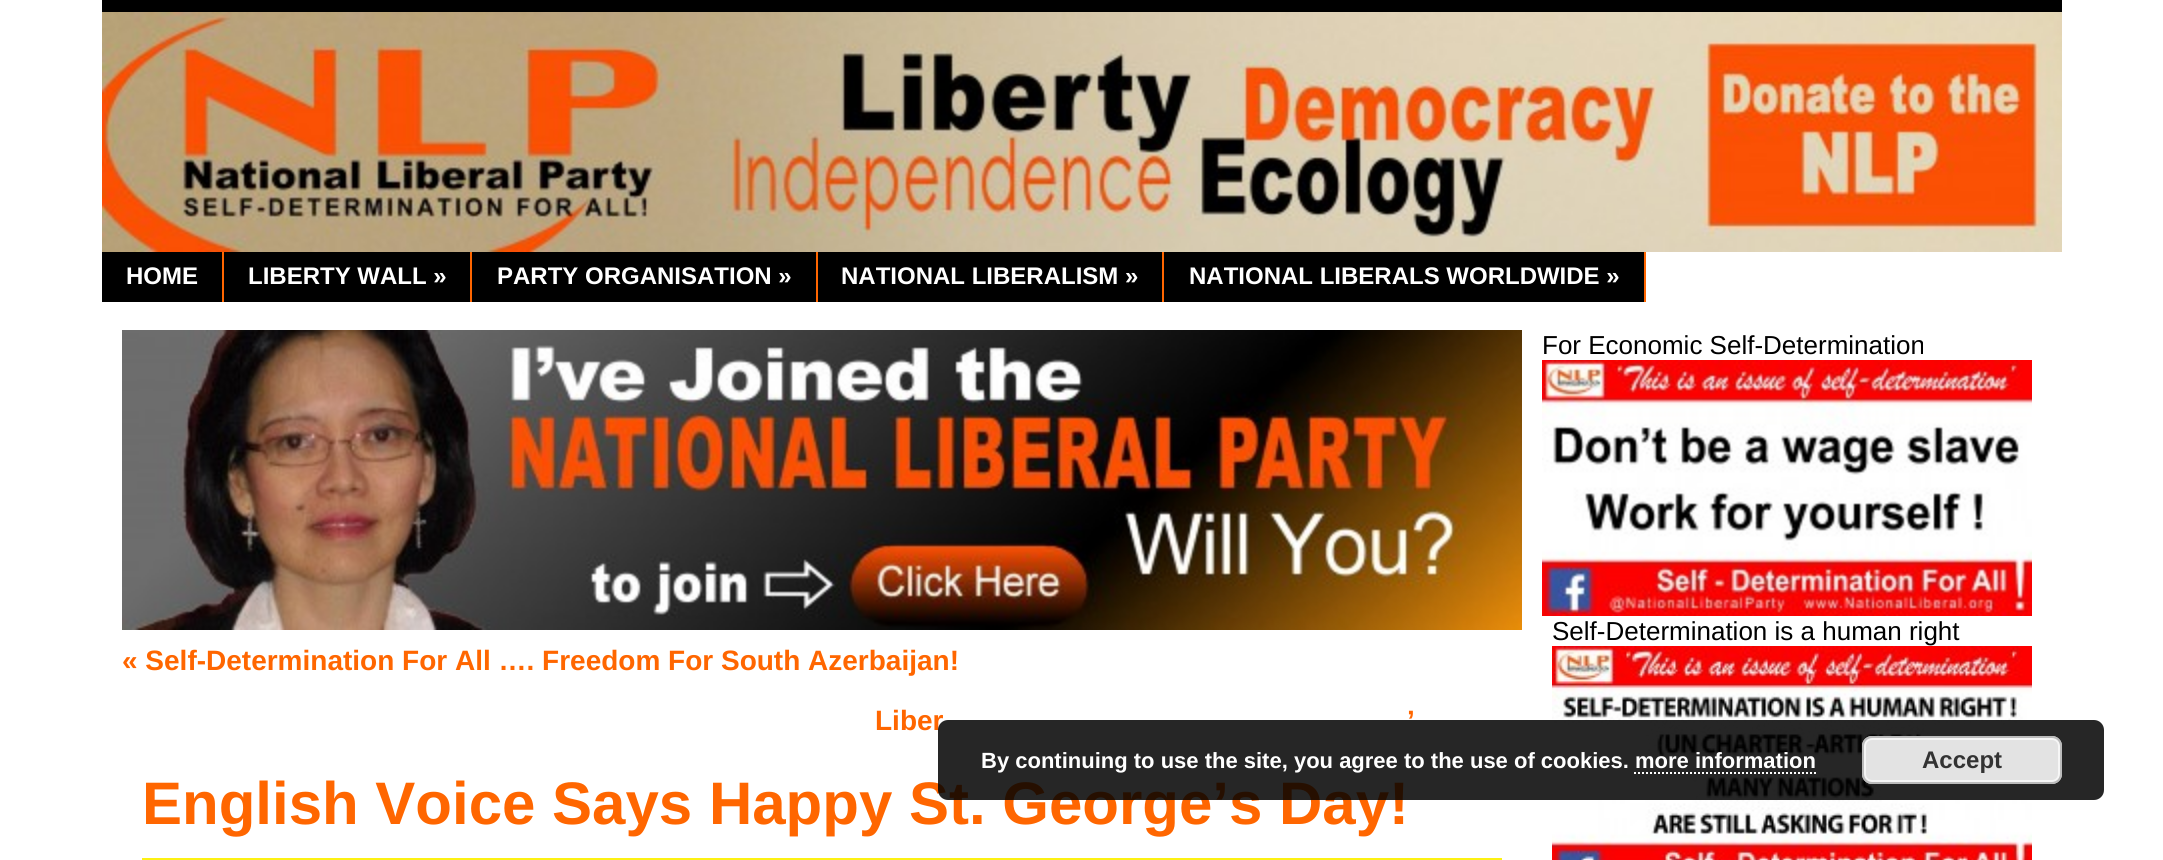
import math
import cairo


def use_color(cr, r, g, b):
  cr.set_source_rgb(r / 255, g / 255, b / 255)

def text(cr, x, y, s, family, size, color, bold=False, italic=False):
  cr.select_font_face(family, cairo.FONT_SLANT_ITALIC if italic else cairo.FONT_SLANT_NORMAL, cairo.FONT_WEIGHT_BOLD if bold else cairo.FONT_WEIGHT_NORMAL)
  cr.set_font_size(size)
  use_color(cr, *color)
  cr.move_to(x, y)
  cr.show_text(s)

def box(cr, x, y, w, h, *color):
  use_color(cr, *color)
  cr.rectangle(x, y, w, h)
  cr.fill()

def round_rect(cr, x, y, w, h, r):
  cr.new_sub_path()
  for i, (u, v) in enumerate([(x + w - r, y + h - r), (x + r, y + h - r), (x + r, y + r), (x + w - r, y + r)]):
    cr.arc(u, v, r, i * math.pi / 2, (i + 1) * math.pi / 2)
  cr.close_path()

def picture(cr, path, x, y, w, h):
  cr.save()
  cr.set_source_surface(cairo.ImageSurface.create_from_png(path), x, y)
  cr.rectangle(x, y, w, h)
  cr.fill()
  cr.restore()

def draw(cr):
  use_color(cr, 255, 255, 255)
  cr.paint()
  box(cr, 102, 0, 1960, 12, 0, 0, 0)
  picture(cr, "img_01.png", 102, 12, 1960, 240)
  box(cr, 102, 252, 120, 50, 0, 0, 0)
  box(cr, 222, 252, 2, 50, 255, 102, 0)
  box(cr, 224, 252, 246, 50, 0, 0, 0)
  box(cr, 470, 252, 2, 50, 255, 102, 0)
  box(cr, 472, 252, 344, 50, 0, 0, 0)
  box(cr, 816, 252, 2, 50, 255, 102, 0)
  box(cr, 818, 252, 344, 50, 0, 0, 0)
  box(cr, 1162, 252, 2, 50, 255, 102, 0)
  box(cr, 1164, 252, 480, 50, 0, 0, 0)
  box(cr, 1644, 252, 2, 50, 255, 102, 0)
  picture(cr, "img_02.png", 1542, 360, 490, 256)
  picture(cr, "img_03.png", 1552, 646, 480, 214)
  picture(cr, "img_04.png", 122, 330, 1400, 300)
  box(cr, 142, 858, 1360, 2, 253, 241, 19)
  text(cr, 126, 284, "HOME", "Liberation Sans", 24, (255, 255, 255), bold=True)
  text(cr, 248, 284, "LIBERTY WALL »", "Liberation Sans", 24, (255, 255, 255), bold=True)
  text(cr, 497, 284, "PARTY ORGANISATION »", "Liberation Sans", 24, (255, 255, 255), bold=True)
  text(cr, 841, 284, "NATIONAL LIBERALISM »", "Liberation Sans", 24, (255, 255, 255), bold=True)
  text(cr, 1189, 284, "NATIONAL LIBERALS WORLDWIDE »", "Liberation Sans", 24, (255, 255, 255), bold=True)
  text(cr, 1542, 354, "For Economic Self-Determination", "Liberation Sans", 26, (0, 0, 0))
  text(cr, 1552, 640, "Self-Determination is a human right", "Liberation Sans", 26, (0, 0, 0))
  text(cr, 122, 670, "« Self-Determination For All …. Freedom For South Azerbaijan!", "Liberation Sans", 28, (255, 102, 0), bold=True)
  text(cr, 875, 730, "Liber", "Liberation Sans", 28, (255, 102, 0), bold=True)
  text(cr, 1407, 730, "’", "Liberation Sans", 28, (255, 102, 0), bold=True)
  text(cr, 142, 824, "English Voice Says Happy St. George’s Day!", "Liberation Sans", 60, (255, 102, 0), bold=True)
  cr.set_source_rgba(0, 0, 0, 0.85)
  round_rect(cr, 938, 720, 1166, 80, 10)
  cr.fill()
  text(cr, 981, 768, "By continuing to use the site, you agree to the use of cookies. more information", "Liberation Sans", 22, (255, 255, 255), bold=True)
  use_color(cr, 227, 227, 227)
  round_rect(cr, 1862, 736, 200, 48, 10)
  cr.fill()
  round_rect(cr, 1865, 739, 194, 42, 7)
  use_color(cr, 246, 246, 246)
  cr.stroke()
  round_rect(cr, 1863, 737, 198, 46, 9)
  use_color(cr, 187, 187, 187)
  cr.stroke()
  text(cr, 1922, 768, "Accept", "Liberation Sans", 24, (51, 51, 51), bold=True)
  cr.new_path()
  cr.move_to(1634, 773)
  cr.line_to(1816, 773)
  use_color(cr, 255, 255, 255)
  cr.set_dash([2, 2])
  cr.stroke()


surface = cairo.ImageSurface(cairo.FORMAT_RGB24, 2163, 860)
cr = cairo.Context(surface)
options = cairo.FontOptions()
options.set_hint_metrics(cairo.HINT_METRICS_OFF)
options.set_hint_style(cairo.HINT_STYLE_NONE)
cr.set_font_options(options)
cr.set_miter_limit(4)
draw(cr)
surface.write_to_png("out.png")
